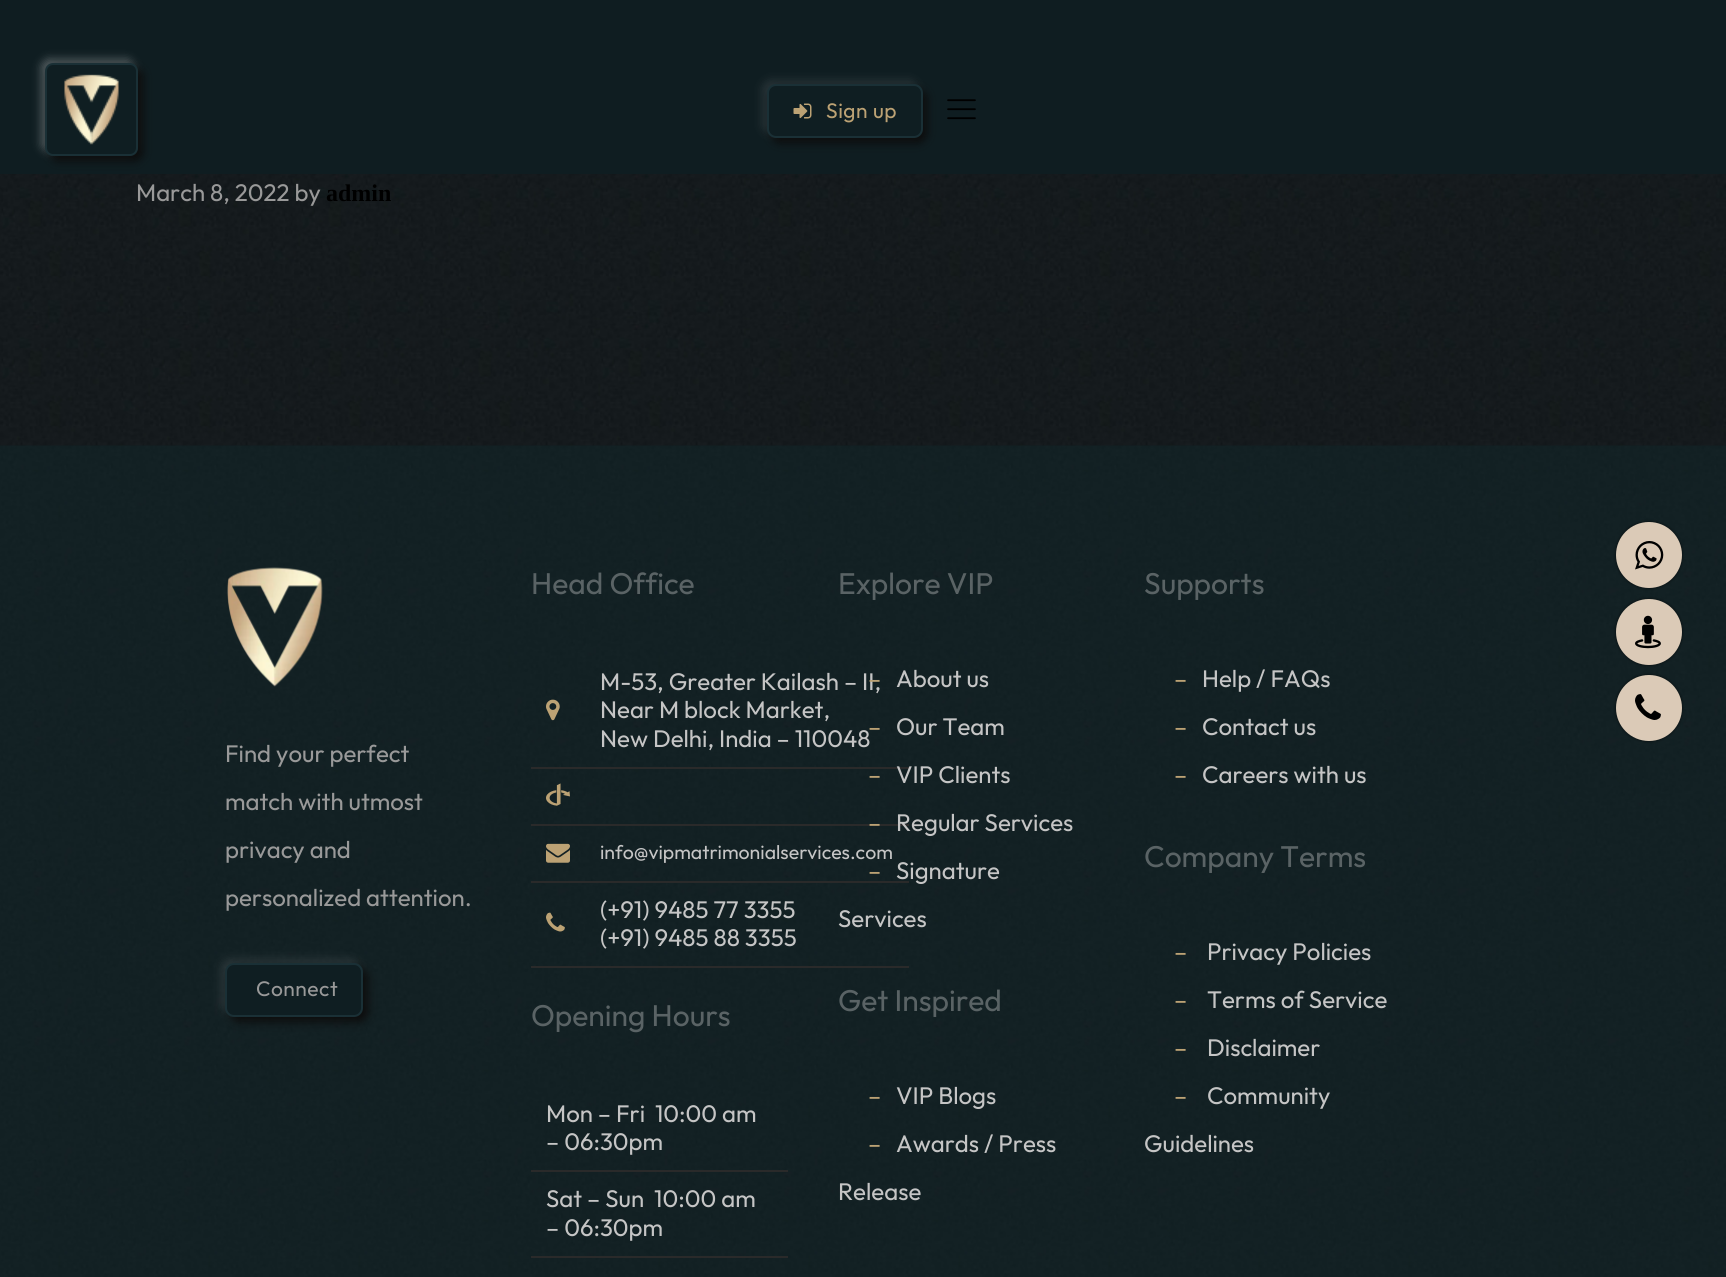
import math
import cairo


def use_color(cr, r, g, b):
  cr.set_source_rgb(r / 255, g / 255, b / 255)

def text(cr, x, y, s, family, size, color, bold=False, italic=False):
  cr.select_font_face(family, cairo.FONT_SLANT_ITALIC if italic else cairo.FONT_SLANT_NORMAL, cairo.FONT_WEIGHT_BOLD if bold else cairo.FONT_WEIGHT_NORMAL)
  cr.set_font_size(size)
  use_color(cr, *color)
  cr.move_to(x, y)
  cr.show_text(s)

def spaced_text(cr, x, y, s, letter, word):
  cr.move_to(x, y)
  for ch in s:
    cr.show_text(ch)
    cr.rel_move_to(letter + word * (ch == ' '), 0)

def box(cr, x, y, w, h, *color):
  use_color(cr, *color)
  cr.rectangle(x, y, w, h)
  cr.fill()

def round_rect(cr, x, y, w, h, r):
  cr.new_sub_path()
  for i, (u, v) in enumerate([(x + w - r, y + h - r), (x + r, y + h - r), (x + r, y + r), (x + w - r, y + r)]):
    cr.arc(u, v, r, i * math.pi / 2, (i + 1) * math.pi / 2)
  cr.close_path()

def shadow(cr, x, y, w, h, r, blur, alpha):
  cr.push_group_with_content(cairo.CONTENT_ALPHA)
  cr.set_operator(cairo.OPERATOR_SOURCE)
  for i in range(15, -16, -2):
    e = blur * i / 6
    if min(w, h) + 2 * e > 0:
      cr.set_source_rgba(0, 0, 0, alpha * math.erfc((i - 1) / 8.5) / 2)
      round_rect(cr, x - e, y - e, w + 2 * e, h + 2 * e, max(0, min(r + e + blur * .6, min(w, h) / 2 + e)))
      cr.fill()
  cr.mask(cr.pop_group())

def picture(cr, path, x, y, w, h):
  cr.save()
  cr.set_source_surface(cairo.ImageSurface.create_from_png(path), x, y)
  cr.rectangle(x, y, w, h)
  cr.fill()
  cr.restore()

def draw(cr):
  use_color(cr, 255, 255, 255)
  cr.paint()
  picture(cr, "img_01.png", 0, 174, 1726, 272)
  box(cr, 0, 0, 1726, 174, 15, 29, 33)
  use_color(cr, 221, 224, 226)
  shadow(cr, 41, 59, 93, 93, 8, 4.5, 0.32)
  use_color(cr, 12, 12, 12)
  shadow(cr, 50, 68, 93, 93, 8, 4.5, 1)
  use_color(cr, 15, 30, 34)
  round_rect(cr, 46, 64, 91, 91, 7)
  cr.fill_preserve()
  use_color(cr, 26, 48, 54)
  cr.stroke()
  picture(cr, "img_02.png", 64, 74, 55, 71)
  use_color(cr, 204, 205, 206)
  shadow(cr, 762, 80, 156, 54, 9, 4.5, 0.13)
  use_color(cr, 12, 12, 12)
  shadow(cr, 771, 89, 156, 54, 9, 4.5, 1)
  use_color(cr, 15, 30, 34)
  round_rect(cr, 768, 85, 154, 52, 8)
  cr.fill_preserve()
  use_color(cr, 26, 48, 54)
  cr.stroke()
  picture(cr, "img_03.png", 793, 103, 19, 16)
  picture(cr, "img_04.png", 947, 99, 29, 21)
  picture(cr, "img_08.png", 0, 445, 1726, 832)
  use_color(cr, 0, 0, 0)
  shadow(cr, 1616, 522, 66, 66, 33, 1.5, 0.7)
  use_color(cr, 219, 202, 183)
  cr.arc(1649, 555, 33, 0, 2 * math.pi)
  cr.fill()
  picture(cr, "img_05.png", 1635, 541, 29, 29)
  use_color(cr, 0, 0, 0)
  shadow(cr, 1616, 599, 66, 66, 33, 1.5, 0.7)
  use_color(cr, 219, 202, 183)
  cr.arc(1649, 632, 33, 0, 2 * math.pi)
  cr.fill()
  picture(cr, "img_06.png", 1635, 615, 26, 34)
  use_color(cr, 0, 0, 0)
  shadow(cr, 1616, 675, 66, 66, 33, 1.5, 0.7)
  use_color(cr, 219, 202, 183)
  cr.arc(1649, 708, 33, 0, 2 * math.pi)
  cr.fill()
  picture(cr, "img_07.png", 1635, 694, 26, 26)
  picture(cr, "img_09.png", 227, 567, 96, 120)
  use_color(cr, 204, 205, 206)
  shadow(cr, 221, 959, 138, 54, 9, 4.5, 0.13)
  use_color(cr, 12, 12, 12)
  shadow(cr, 230, 968, 138, 54, 9, 4.5, 1)
  use_color(cr, 15, 30, 34)
  round_rect(cr, 226, 964, 136, 52, 8)
  cr.fill_preserve()
  use_color(cr, 26, 48, 54)
  cr.stroke()
  picture(cr, "img_10.png", 546, 699, 14, 22)
  box(cr, 531, 767, 378, 2, 42, 42, 42)
  picture(cr, "img_11.png", 546, 783, 24, 23)
  box(cr, 531, 824, 378, 2, 42, 42, 42)
  picture(cr, "img_12.png", 546, 843, 24, 20)
  box(cr, 531, 881, 378, 2, 42, 42, 42)
  picture(cr, "img_13.png", 546, 912, 19, 20)
  box(cr, 531, 966, 378, 2, 42, 42, 42)
  box(cr, 531, 1170, 257, 2, 42, 42, 42)
  box(cr, 531, 1256, 257, 2, 42, 42, 42)
  cr.select_font_face("Outfit")
  cr.set_font_size(21)
  use_color(cr, 188, 162, 116)
  spaced_text(cr, 826, 118, "Sign up", 0.5, 0)
  text(cr, 136, 201, "March 8, 2022 by", "Outfit", 24, (153, 153, 153))
  text(cr, 326, 201, "admin", "Liberation Serif", 24, (0, 0, 0), bold=True)
  text(cr, 225, 762, "Find your perfect", "Outfit", 24, (153, 153, 153))
  text(cr, 225, 810, "match with utmost", "Outfit", 24, (153, 153, 153))
  text(cr, 225, 858, "privacy and", "Outfit", 24, (153, 153, 153))
  text(cr, 225, 906, "personalized attention.", "Outfit", 24, (153, 153, 153))
  cr.set_font_size(21)
  spaced_text(cr, 256, 996, "Connect", 0.5, 0)
  text(cr, 531, 594, "Head Office", "Outfit", 30, (90, 99, 101))
  text(cr, 600, 690, "M-53, Greater Kailash – II,", "Outfit", 24, (197, 197, 197))
  text(cr, 600, 718, "Near M block Market,", "Outfit", 24, (197, 197, 197))
  text(cr, 600, 747, "New Delhi, India – 110048", "Outfit", 24, (197, 197, 197))
  text(cr, 600, 859, "info@vipmatrimonialservices.com", "Outfit", 19.5, (197, 197, 197))
  text(cr, 600, 918, "(+91) 9485 77 3355", "Outfit", 24, (197, 197, 197))
  text(cr, 600, 946, "(+91) 9485 88 3355", "Outfit", 24, (197, 197, 197))
  text(cr, 531, 1026, "Opening Hours", "Outfit", 30, (90, 99, 101))
  text(cr, 546, 1122, "Mon – Fri  10:00 am", "Outfit", 24, (197, 197, 197))
  text(cr, 546, 1150, "– 06:30pm", "Outfit", 24, (197, 197, 197))
  text(cr, 546, 1207, "Sat – Sun  10:00 am", "Outfit", 24, (197, 197, 197))
  text(cr, 546, 1236, "– 06:30pm", "Outfit", 24, (197, 197, 197))
  text(cr, 838, 594, "Explore VIP", "Outfit", 30, (90, 99, 101))
  text(cr, 868, 687, "–", "Outfit", 24, (188, 162, 116))
  text(cr, 896, 687, "About us", "Outfit", 24, (197, 197, 197))
  text(cr, 868, 735, "–", "Outfit", 24, (188, 162, 116))
  text(cr, 896, 735, "Our Team", "Outfit", 24, (197, 197, 197))
  text(cr, 868, 783, "–", "Outfit", 24, (188, 162, 116))
  text(cr, 896, 783, "VIP Clients", "Outfit", 24, (197, 197, 197))
  text(cr, 868, 831, "–", "Outfit", 24, (188, 162, 116))
  text(cr, 896, 831, "Regular Services", "Outfit", 24, (197, 197, 197))
  text(cr, 868, 879, "–", "Outfit", 24, (188, 162, 116))
  text(cr, 896, 879, "Signature", "Outfit", 24, (197, 197, 197))
  text(cr, 838, 927, "Services", "Outfit", 24, (197, 197, 197))
  text(cr, 838, 1011, "Get Inspired", "Outfit", 30, (90, 99, 101))
  text(cr, 868, 1104, "–", "Outfit", 24, (188, 162, 116))
  text(cr, 896, 1104, "VIP Blogs", "Outfit", 24, (197, 197, 197))
  text(cr, 868, 1152, "–", "Outfit", 24, (188, 162, 116))
  text(cr, 896, 1152, "Awards / Press", "Outfit", 24, (197, 197, 197))
  text(cr, 838, 1200, "Release", "Outfit", 24, (197, 197, 197))
  text(cr, 1144, 594, "Supports", "Outfit", 30, (90, 99, 101))
  text(cr, 1174, 687, "–", "Outfit", 24, (188, 162, 116))
  text(cr, 1202, 687, "Help / FAQs", "Outfit", 24, (197, 197, 197))
  text(cr, 1174, 735, "–", "Outfit", 24, (188, 162, 116))
  text(cr, 1202, 735, "Contact us", "Outfit", 24, (197, 197, 197))
  text(cr, 1174, 783, "–", "Outfit", 24, (188, 162, 116))
  text(cr, 1202, 783, "Careers with us", "Outfit", 24, (197, 197, 197))
  text(cr, 1144, 867, "Company Terms", "Outfit", 30, (90, 99, 101))
  text(cr, 1174, 960, "–", "Outfit", 24, (188, 162, 116))
  text(cr, 1207, 960, "Privacy Policies", "Outfit", 24, (197, 197, 197))
  text(cr, 1174, 1008, "–", "Outfit", 24, (188, 162, 116))
  text(cr, 1207, 1008, "Terms of Service", "Outfit", 24, (197, 197, 197))
  text(cr, 1174, 1056, "–", "Outfit", 24, (188, 162, 116))
  text(cr, 1207, 1056, "Disclaimer", "Outfit", 24, (197, 197, 197))
  text(cr, 1174, 1104, "–", "Outfit", 24, (188, 162, 116))
  text(cr, 1207, 1104, "Community", "Outfit", 24, (197, 197, 197))
  text(cr, 1144, 1152, "Guidelines", "Outfit", 24, (197, 197, 197))


surface = cairo.ImageSurface(cairo.FORMAT_RGB24, 1726, 1277)
cr = cairo.Context(surface)
options = cairo.FontOptions()
options.set_hint_metrics(cairo.HINT_METRICS_OFF)
options.set_hint_style(cairo.HINT_STYLE_NONE)
cr.set_font_options(options)
cr.set_miter_limit(4)
draw(cr)
surface.write_to_png("out.png")
